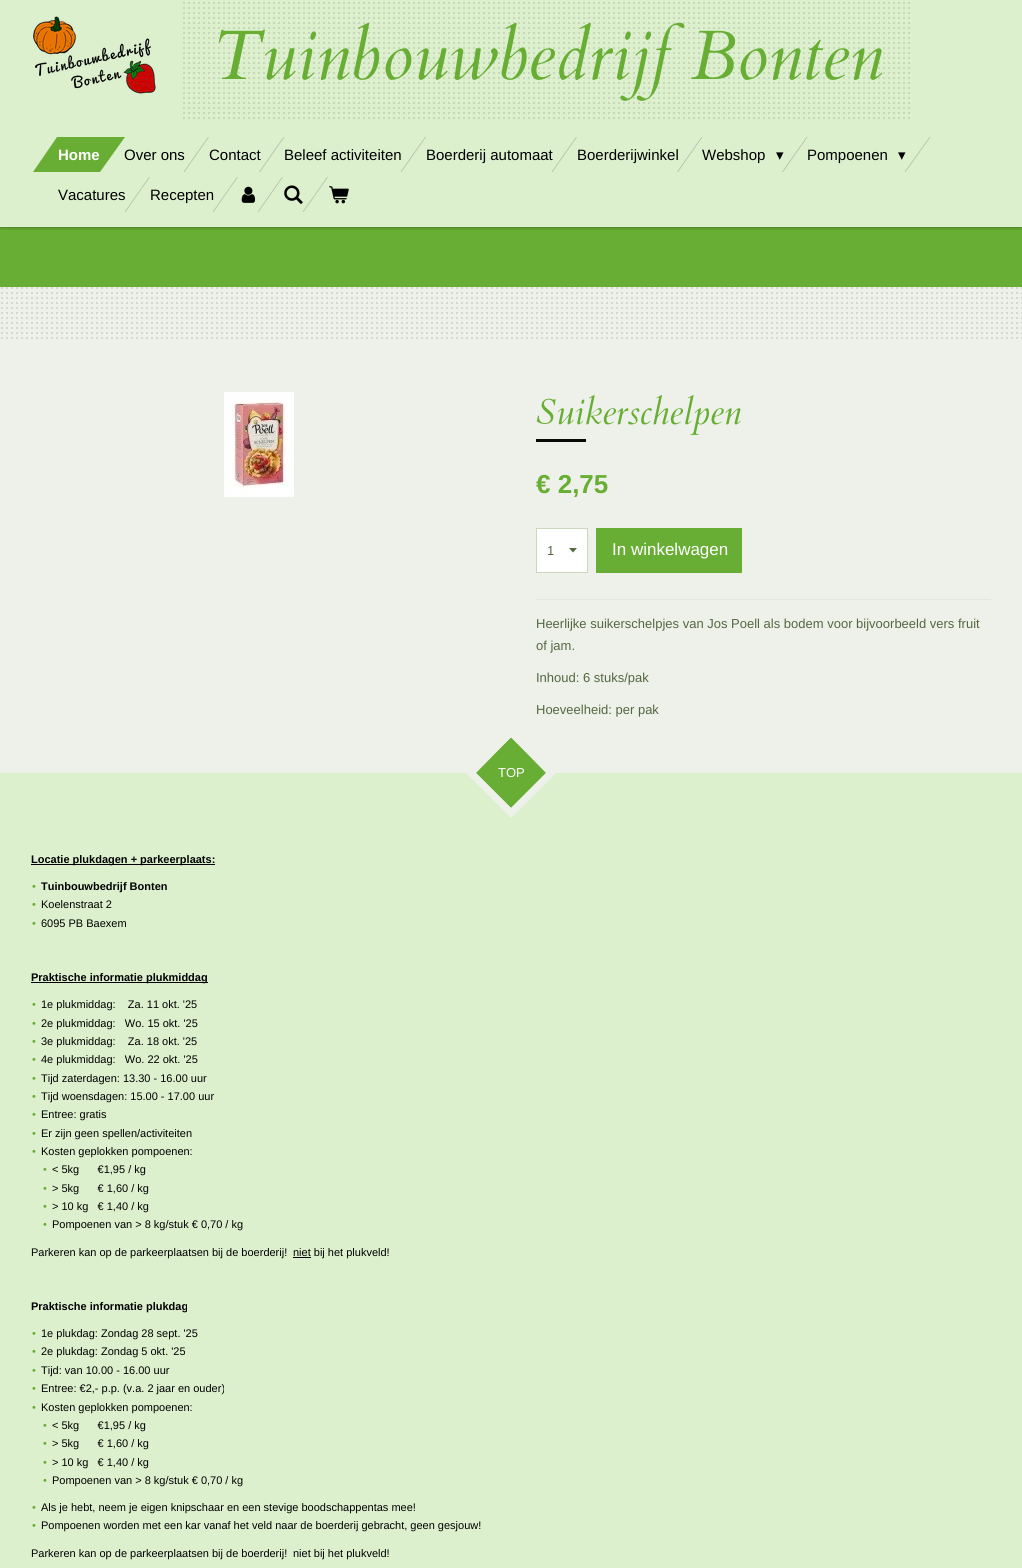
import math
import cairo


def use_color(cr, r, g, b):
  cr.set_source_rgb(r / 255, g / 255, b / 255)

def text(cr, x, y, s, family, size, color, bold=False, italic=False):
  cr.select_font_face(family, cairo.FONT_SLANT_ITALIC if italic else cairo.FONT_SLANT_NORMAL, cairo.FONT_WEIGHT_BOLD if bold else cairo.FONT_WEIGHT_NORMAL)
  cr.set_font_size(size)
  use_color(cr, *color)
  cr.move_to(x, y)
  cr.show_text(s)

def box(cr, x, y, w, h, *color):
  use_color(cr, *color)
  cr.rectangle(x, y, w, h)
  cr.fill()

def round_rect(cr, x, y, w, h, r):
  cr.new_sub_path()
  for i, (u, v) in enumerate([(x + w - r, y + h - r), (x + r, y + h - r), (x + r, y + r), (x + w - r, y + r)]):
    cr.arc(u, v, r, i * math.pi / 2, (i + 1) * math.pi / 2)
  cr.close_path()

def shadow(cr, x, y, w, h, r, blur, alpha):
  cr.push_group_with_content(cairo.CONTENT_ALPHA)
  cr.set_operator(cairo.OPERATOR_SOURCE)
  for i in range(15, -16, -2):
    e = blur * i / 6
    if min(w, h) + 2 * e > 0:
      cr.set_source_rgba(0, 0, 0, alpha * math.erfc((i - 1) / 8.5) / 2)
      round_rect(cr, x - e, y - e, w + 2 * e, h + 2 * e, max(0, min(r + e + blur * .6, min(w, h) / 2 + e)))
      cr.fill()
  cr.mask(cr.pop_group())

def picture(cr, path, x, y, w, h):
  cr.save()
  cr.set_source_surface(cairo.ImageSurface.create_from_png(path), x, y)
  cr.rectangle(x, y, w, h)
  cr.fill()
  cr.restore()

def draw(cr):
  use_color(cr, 237, 241, 233)
  cr.paint()
  box(cr, 0, 227, 1022, 60, 104, 174, 52)
  use_color(cr, 0, 0, 0)
  shadow(cr, 0, -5, 1022, 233, 0, 1.5, 0.3)
  box(cr, 0, 0, 1022, 227, 221, 240, 206)
  picture(cr, "img_01.png", 33, 16, 123, 78)
  picture(cr, "img_02.png", 183, 2, 727, 117)
  use_color(cr, 177, 192, 165)
  cr.new_path()
  cr.move_to(208, 137)
  cr.line_to(209, 137)
  cr.line_to(184.5, 172)
  cr.line_to(183.5, 172)
  cr.close_path()
  cr.fill()
  cr.new_path()
  cr.move_to(283.5, 137)
  cr.line_to(284.5, 137)
  cr.line_to(260, 172)
  cr.line_to(259, 172)
  cr.close_path()
  cr.fill()
  cr.new_path()
  cr.move_to(425, 137)
  cr.line_to(426, 137)
  cr.line_to(401.5, 172)
  cr.line_to(400.5, 172)
  cr.close_path()
  cr.fill()
  cr.new_path()
  cr.move_to(576, 137)
  cr.line_to(577, 137)
  cr.line_to(552.5, 172)
  cr.line_to(551.5, 172)
  cr.close_path()
  cr.fill()
  cr.new_path()
  cr.move_to(701.5, 137)
  cr.line_to(702.5, 137)
  cr.line_to(678, 172)
  cr.line_to(677, 172)
  cr.close_path()
  cr.fill()
  cr.new_path()
  cr.move_to(806.5, 137)
  cr.line_to(807.5, 137)
  cr.line_to(783, 172)
  cr.line_to(782, 172)
  cr.close_path()
  cr.fill()
  cr.new_path()
  cr.move_to(929.5, 137)
  cr.line_to(930.5, 137)
  cr.line_to(905.5, 172)
  cr.line_to(904.5, 172)
  cr.close_path()
  cr.fill()
  cr.new_path()
  cr.move_to(149, 177)
  cr.line_to(150, 177)
  cr.line_to(125.5, 212)
  cr.line_to(124.5, 212)
  cr.close_path()
  cr.fill()
  cr.new_path()
  cr.move_to(237, 177)
  cr.line_to(238, 177)
  cr.line_to(213.5, 212)
  cr.line_to(212.5, 212)
  cr.close_path()
  cr.fill()
  picture(cr, "img_03.png", 241, 186, 15, 17)
  cr.new_path()
  cr.move_to(282, 177)
  cr.line_to(283, 177)
  cr.line_to(258.5, 212)
  cr.line_to(257.5, 212)
  cr.close_path()
  cr.fill()
  cr.new_path()
  cr.move_to(327, 177)
  cr.line_to(328, 177)
  cr.line_to(303.5, 212)
  cr.line_to(302.5, 212)
  cr.close_path()
  cr.fill()
  picture(cr, "img_04.png", 284, 185, 19, 20)
  picture(cr, "img_05.png", 329, 186, 20, 18)
  picture(cr, "img_06.png", 1, 287, 1021, 52)
  picture(cr, "img_07.png", 224, 392, 70, 105)
  box(cr, 536, 439, 50, 3, 8, 9, 6)
  box(cr, 537, 529, 50, 43, 255, 255, 255)
  use_color(cr, 84, 103, 65)
  cr.new_path()
  cr.move_to(573, 552.5)
  cr.line_to(569, 548)
  cr.line_to(577, 548)
  cr.close_path()
  cr.fill()
  cr.rectangle(536.5, 528.5, 51, 44)
  use_color(cr, 202, 214, 190)
  cr.set_line_width(1)
  cr.stroke()
  box(cr, 596, 528, 146, 45, 104, 174, 52)
  box(cr, 536, 599, 455, 1, 226, 231, 221)
  box(cr, 0, 773, 1022, 795, 221, 240, 206)
  use_color(cr, 104, 174, 52)
  cr.new_path()
  cr.move_to(511, 737)
  cr.line_to(546, 773)
  cr.line_to(511, 808)
  cr.line_to(476, 773)
  cr.close_path()
  cr.fill()
  cr.new_path()
  cr.move_to(511, 732.5)
  cr.line_to(551.5, 772.5)
  cr.line_to(511, 813)
  cr.line_to(470.5, 772.5)
  cr.close_path()
  use_color(cr, 237, 241, 233)
  cr.set_line_width(7)
  cr.stroke()
  box(cr, 31, 864, 184, 1, 0, 0, 0)
  box(cr, 31, 982, 177, 1, 0, 0, 0)
  box(cr, 293, 1257, 18, 1, 0, 0, 0)
  text(cr, 212, 79, "Tuinbouwbedrijf Bonten", "Cardo", 70, (104, 174, 52), italic=True)
  text(cr, 124, 160, "Over ons", "Liberation Sans", 15, (0, 0, 0))
  use_color(cr, 104, 174, 52)
  cr.new_path()
  cr.move_to(57, 137)
  cr.line_to(125, 137)
  cr.line_to(100, 172)
  cr.line_to(33, 172)
  cr.close_path()
  cr.fill()
  text(cr, 58, 160, "Home", "Liberation Sans", 15, (255, 255, 255), bold=True)
  text(cr, 209, 160, "Contact", "Liberation Sans", 15, (0, 0, 0))
  text(cr, 284, 160, "Beleef activiteiten", "Liberation Sans", 15, (0, 0, 0))
  text(cr, 426, 160, "Boerderij automaat", "Liberation Sans", 15, (0, 0, 0))
  text(cr, 577, 160, "Boerderijwinkel", "Liberation Sans", 15, (0, 0, 0))
  text(cr, 702, 160, "Webshop", "Liberation Sans", 15, (0, 0, 0))
  text(cr, 776, 160, "▾", "DejaVu Sans", 15, (0, 0, 0))
  text(cr, 807, 160, "Pompoenen", "Liberation Sans", 15, (0, 0, 0))
  text(cr, 898, 160, "▾", "DejaVu Sans", 15, (0, 0, 0))
  text(cr, 58, 200, "Vacatures", "Liberation Sans", 15, (0, 0, 0))
  text(cr, 150, 200, "Recepten", "Liberation Sans", 15, (0, 0, 0))
  text(cr, 536, 424, "Suikerschelpen", "Cardo", 36, (104, 174, 52), italic=True)
  text(cr, 536, 493, "€ 2,75", "Liberation Sans", 26, (104, 174, 52), bold=True)
  text(cr, 547, 555, "1", "Liberation Sans", 13, (84, 103, 65))
  text(cr, 612, 555, "In winkelwagen", "Liberation Sans", 17, (255, 255, 255))
  text(cr, 536, 628, "Heerlijke suikerschelpjes van Jos Poell als bodem voor bijvoorbeeld vers fruit", "Liberation Sans", 13, (84, 103, 65))
  text(cr, 536, 650, "of jam.", "Liberation Sans", 13, (84, 103, 65))
  text(cr, 536, 682, "Inhoud: 6 stuks/pak", "Liberation Sans", 13, (84, 103, 65))
  text(cr, 536, 714, "Hoeveelheid: per pak", "Liberation Sans", 13, (84, 103, 65))
  text(cr, 498, 777, "TOP", "Liberation Sans", 13, (255, 255, 255))
  text(cr, 31, 863, "Locatie plukdagen + parkeerplaats:", "Liberation Sans", 11, (0, 0, 0), bold=True)
  text(cr, 32, 890, "•", "Liberation Sans", 11, (104, 174, 52))
  text(cr, 41, 890, "Tuinbouwbedrijf Bonten", "Liberation Sans", 11, (0, 0, 0), bold=True)
  text(cr, 32, 908, "•", "Liberation Sans", 11, (104, 174, 52))
  text(cr, 41, 908, "Koelenstraat 2", "Liberation Sans", 11, (0, 0, 0))
  text(cr, 32, 927, "•", "Liberation Sans", 11, (104, 174, 52))
  text(cr, 41, 927, "6095 PB Baexem", "Liberation Sans", 11, (0, 0, 0))
  text(cr, 31, 981, "Praktische informatie plukmiddag", "Liberation Sans", 11, (0, 0, 0), bold=True)
  text(cr, 32, 1008, "•", "Liberation Sans", 11, (104, 174, 52))
  text(cr, 41, 1008, "1e plukmiddag:    Za. 11 okt. '25", "Liberation Sans", 11, (0, 0, 0))
  text(cr, 32, 1027, "•", "Liberation Sans", 11, (104, 174, 52))
  text(cr, 41, 1027, "2e plukmiddag:   Wo. 15 okt. '25", "Liberation Sans", 11, (0, 0, 0))
  text(cr, 32, 1045, "•", "Liberation Sans", 11, (104, 174, 52))
  text(cr, 41, 1045, "3e plukmiddag:    Za. 18 okt. '25", "Liberation Sans", 11, (0, 0, 0))
  text(cr, 32, 1063, "•", "Liberation Sans", 11, (104, 174, 52))
  text(cr, 41, 1063, "4e plukmiddag:   Wo. 22 okt. '25", "Liberation Sans", 11, (0, 0, 0))
  text(cr, 32, 1082, "•", "Liberation Sans", 11, (104, 174, 52))
  text(cr, 41, 1082, "Tijd zaterdagen: 13.30 - 16.00 uur", "Liberation Sans", 11, (0, 0, 0))
  text(cr, 32, 1100, "•", "Liberation Sans", 11, (104, 174, 52))
  text(cr, 41, 1100, "Tijd woensdagen: 15.00 - 17.00 uur", "Liberation Sans", 11, (0, 0, 0))
  text(cr, 32, 1118, "•", "Liberation Sans", 11, (104, 174, 52))
  text(cr, 41, 1118, "Entree: gratis", "Liberation Sans", 11, (0, 0, 0))
  text(cr, 32, 1137, "•", "Liberation Sans", 11, (104, 174, 52))
  text(cr, 41, 1137, "Er zijn geen spellen/activiteiten", "Liberation Sans", 11, (0, 0, 0))
  text(cr, 32, 1155, "•", "Liberation Sans", 11, (104, 174, 52))
  text(cr, 41, 1155, "Kosten geplokken pompoenen:", "Liberation Sans", 11, (0, 0, 0))
  text(cr, 43, 1173, "•", "Liberation Sans", 11, (104, 174, 52))
  text(cr, 52, 1173, "< 5kg      €1,95 / kg", "Liberation Sans", 11, (0, 0, 0))
  text(cr, 43, 1192, "•", "Liberation Sans", 11, (104, 174, 52))
  text(cr, 52, 1192, "> 5kg      € 1,60 / kg", "Liberation Sans", 11, (0, 0, 0))
  text(cr, 43, 1210, "•", "Liberation Sans", 11, (104, 174, 52))
  text(cr, 52, 1210, "> 10 kg   € 1,40 / kg", "Liberation Sans", 11, (0, 0, 0))
  text(cr, 43, 1228, "•", "Liberation Sans", 11, (104, 174, 52))
  text(cr, 52, 1228, "Pompoenen van > 8 kg/stuk € 0,70 / kg", "Liberation Sans", 11, (0, 0, 0))
  text(cr, 31, 1256, "Parkeren kan op de parkeerplaatsen bij de boerderij!", "Liberation Sans", 11, (0, 0, 0))
  text(cr, 293, 1256, "niet bij het plukveld!", "Liberation Sans", 11, (0, 0, 0))
  text(cr, 31, 1310, "Praktische informatie plukdag", "Liberation Sans", 11, (0, 0, 0), bold=True)
  text(cr, 32, 1337, "•", "Liberation Sans", 11, (104, 174, 52))
  text(cr, 41, 1337, "1e plukdag: Zondag 28 sept. '25", "Liberation Sans", 11, (0, 0, 0))
  text(cr, 32, 1355, "•", "Liberation Sans", 11, (104, 174, 52))
  text(cr, 41, 1355, "2e plukdag: Zondag 5 okt. '25", "Liberation Sans", 11, (0, 0, 0))
  text(cr, 32, 1374, "•", "Liberation Sans", 11, (104, 174, 52))
  text(cr, 41, 1374, "Tijd: van 10.00 - 16.00 uur", "Liberation Sans", 11, (0, 0, 0))
  text(cr, 32, 1392, "•", "Liberation Sans", 11, (104, 174, 52))
  text(cr, 41, 1392, "Entree: €2,- p.p. (v.a. 2 jaar en ouder)", "Liberation Sans", 11, (0, 0, 0))
  text(cr, 32, 1411, "•", "Liberation Sans", 11, (104, 174, 52))
  text(cr, 41, 1411, "Kosten geplokken pompoenen:", "Liberation Sans", 11, (0, 0, 0))
  text(cr, 43, 1429, "•", "Liberation Sans", 11, (104, 174, 52))
  text(cr, 52, 1429, "< 5kg      €1,95 / kg", "Liberation Sans", 11, (0, 0, 0))
  text(cr, 43, 1447, "•", "Liberation Sans", 11, (104, 174, 52))
  text(cr, 52, 1447, "> 5kg      € 1,60 / kg", "Liberation Sans", 11, (0, 0, 0))
  text(cr, 43, 1466, "•", "Liberation Sans", 11, (104, 174, 52))
  text(cr, 52, 1466, "> 10 kg   € 1,40 / kg", "Liberation Sans", 11, (0, 0, 0))
  text(cr, 43, 1484, "•", "Liberation Sans", 11, (104, 174, 52))
  text(cr, 52, 1484, "Pompoenen van > 8 kg/stuk € 0,70 / kg", "Liberation Sans", 11, (0, 0, 0))
  text(cr, 32, 1511, "•", "Liberation Sans", 11, (104, 174, 52))
  text(cr, 41, 1511, "Als je hebt, neem je eigen knipschaar en een stevige boodschappentas mee!", "Liberation Sans", 11, (0, 0, 0))
  text(cr, 32, 1529, "•", "Liberation Sans", 11, (104, 174, 52))
  text(cr, 41, 1529, "Pompoenen worden met een kar vanaf het veld naar de boerderij gebracht, geen gesjouw!", "Liberation Sans", 11, (0, 0, 0))
  text(cr, 31, 1557, "Parkeren kan op de parkeerplaatsen bij de boerderij!", "Liberation Sans", 11, (0, 0, 0))
  text(cr, 293, 1557, "niet bij het plukveld!", "Liberation Sans", 11, (0, 0, 0))


surface = cairo.ImageSurface(cairo.FORMAT_RGB24, 1022, 1568)
cr = cairo.Context(surface)
options = cairo.FontOptions()
options.set_hint_metrics(cairo.HINT_METRICS_OFF)
options.set_hint_style(cairo.HINT_STYLE_NONE)
cr.set_font_options(options)
cr.set_miter_limit(4)
draw(cr)
surface.write_to_png("out.png")
